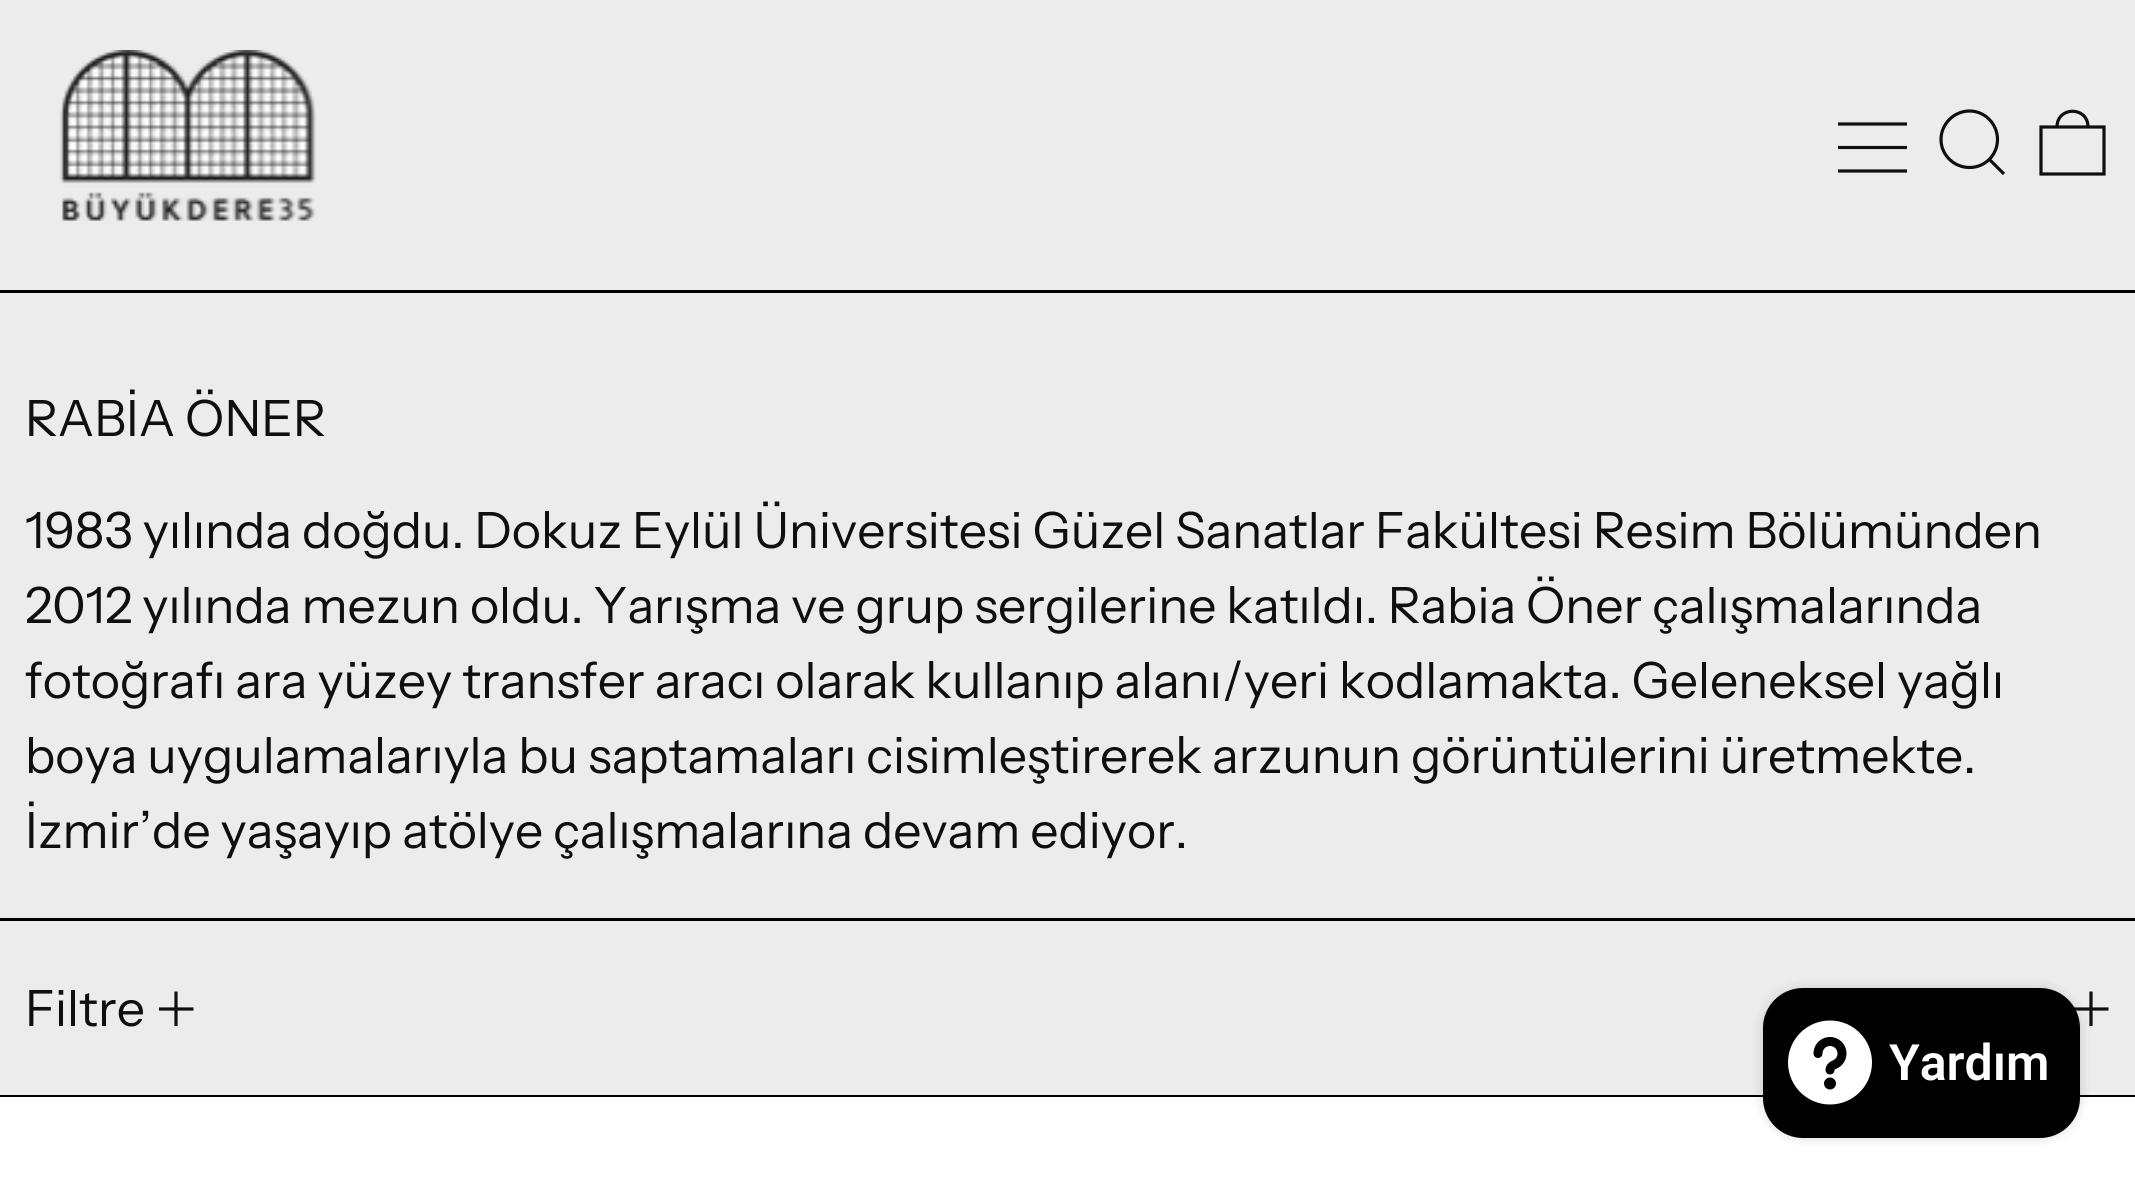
import math
import cairo


def use_color(cr, r, g, b):
  cr.set_source_rgb(r / 255, g / 255, b / 255)

def text(cr, x, y, s, family, size, color, bold=False, italic=False):
  cr.select_font_face(family, cairo.FONT_SLANT_ITALIC if italic else cairo.FONT_SLANT_NORMAL, cairo.FONT_WEIGHT_BOLD if bold else cairo.FONT_WEIGHT_NORMAL)
  cr.set_font_size(size)
  use_color(cr, *color)
  cr.move_to(x, y)
  cr.show_text(s)

def box(cr, x, y, w, h, *color):
  use_color(cr, *color)
  cr.rectangle(x, y, w, h)
  cr.fill()

def round_rect(cr, x, y, w, h, r):
  cr.new_sub_path()
  for i, (u, v) in enumerate([(x + w - r, y + h - r), (x + r, y + h - r), (x + r, y + r), (x + w - r, y + r)]):
    cr.arc(u, v, r, i * math.pi / 2, (i + 1) * math.pi / 2)
  cr.close_path()

def shadow(cr, x, y, w, h, r, blur, alpha):
  cr.push_group_with_content(cairo.CONTENT_ALPHA)
  cr.set_operator(cairo.OPERATOR_SOURCE)
  for i in range(15, -16, -2):
    e = blur * i / 6
    if min(w, h) + 2 * e > 0:
      cr.set_source_rgba(0, 0, 0, alpha * math.erfc((i - 1) / 8.5) / 2)
      round_rect(cr, x - e, y - e, w + 2 * e, h + 2 * e, max(0, min(r + e + blur * .6, min(w, h) / 2 + e)))
      cr.fill()
  cr.mask(cr.pop_group())

def picture(cr, path, x, y, w, h):
  cr.save()
  cr.set_source_surface(cairo.ImageSurface.create_from_png(path), x, y)
  cr.rectangle(x, y, w, h)
  cr.fill()
  cr.restore()

def draw(cr):
  use_color(cr, 236, 236, 236)
  cr.paint()
  box(cr, 0, 290, 2135, 3, 0, 0, 0)
  picture(cr, "img_01.png", 59, 50, 258, 171)
  cr.new_path()
  cr.move_to(1838, 124)
  cr.line_to(1907, 124)
  cr.move_to(1838, 147.5)
  cr.line_to(1907, 147.5)
  cr.move_to(1838, 171)
  cr.line_to(1907, 171)
  use_color(cr, 15, 15, 15)
  cr.set_line_width(3.2)
  cr.stroke()
  cr.new_path()
  cr.move_to(1941, 139.5)
  cr.curve_to(1941, 155, 1954, 167.5, 1969.5, 167.5)
  cr.curve_to(1985, 167.5, 1997.5, 155, 1997.5, 139.5)
  cr.curve_to(1997.5, 124, 1985, 111, 1969.5, 111)
  cr.curve_to(1954, 111, 1941, 124, 1941, 139.5)
  cr.close_path()
  cr.move_to(1989.5, 159.5)
  cr.line_to(2004, 174)
  cr.stroke()
  cr.new_path()
  cr.move_to(2041, 127)
  cr.line_to(2104, 127)
  cr.line_to(2104, 174)
  cr.line_to(2041, 174)
  cr.close_path()
  cr.move_to(2088, 127)
  cr.curve_to(2088, 106, 2057, 106, 2057, 127)
  cr.stroke()
  box(cr, 0, 918, 2135, 3, 0, 0, 0)
  box(cr, 0, 1095, 2135, 2, 0, 0, 0)
  cr.new_path()
  cr.move_to(176, 991.5)
  cr.line_to(176, 1026)
  cr.move_to(159, 1009)
  cr.line_to(193.5, 1009)
  use_color(cr, 15, 15, 15)
  cr.stroke()
  cr.new_path()
  cr.move_to(2091, 991.5)
  cr.line_to(2091, 1026)
  cr.move_to(2074, 1009)
  cr.line_to(2108.5, 1009)
  cr.stroke()
  box(cr, 0, 1097, 2135, 92, 255, 255, 255)
  use_color(cr, 0, 0, 0)
  shadow(cr, 1763, 988, 317, 150, 40, 6, 0.15)
  use_color(cr, 0, 0, 0)
  round_rect(cr, 1763, 988, 317, 150, 40)
  cr.fill()
  picture(cr, "img_02.png", 1788, 1020, 84, 85)
  text(cr, 25, 436, "RABİA ÖNER", "Instrument Sans", 50, (15, 15, 15))
  text(cr, 25, 548, "1983 yılında doğdu. Dokuz Eylül Üniversitesi Güzel Sanatlar Fakültesi Resim Bölümünden", "Instrument Sans", 50, (15, 15, 15))
  text(cr, 25, 623, "2012 yılında mezun oldu. Yarışma ve grup sergilerine katıldı. Rabia Öner çalışmalarında", "Instrument Sans", 50, (15, 15, 15))
  text(cr, 25, 698, "fotoğrafı ara yüzey transfer aracı olarak kullanıp alanı/yeri kodlamakta. Geleneksel yağlı", "Instrument Sans", 50, (15, 15, 15))
  text(cr, 25, 773, "boya uygulamalarıyla bu saptamaları cisimleştirerek arzunun görüntülerini üretmekte.", "Instrument Sans", 50, (15, 15, 15))
  text(cr, 25, 848, "İzmir’de yaşayıp atölye çalışmalarına devam ediyor.", "Instrument Sans", 50, (15, 15, 15))
  text(cr, 25, 1026, "Filtre", "Instrument Sans", 50, (15, 15, 15))
  text(cr, 1889, 1080, "Yardım", "Roboto SemiBold", 50, (255, 255, 255))


surface = cairo.ImageSurface(cairo.FORMAT_RGB24, 2135, 1189)
cr = cairo.Context(surface)
options = cairo.FontOptions()
options.set_hint_metrics(cairo.HINT_METRICS_OFF)
options.set_hint_style(cairo.HINT_STYLE_NONE)
cr.set_font_options(options)
cr.set_miter_limit(4)
draw(cr)
surface.write_to_png("out.png")
